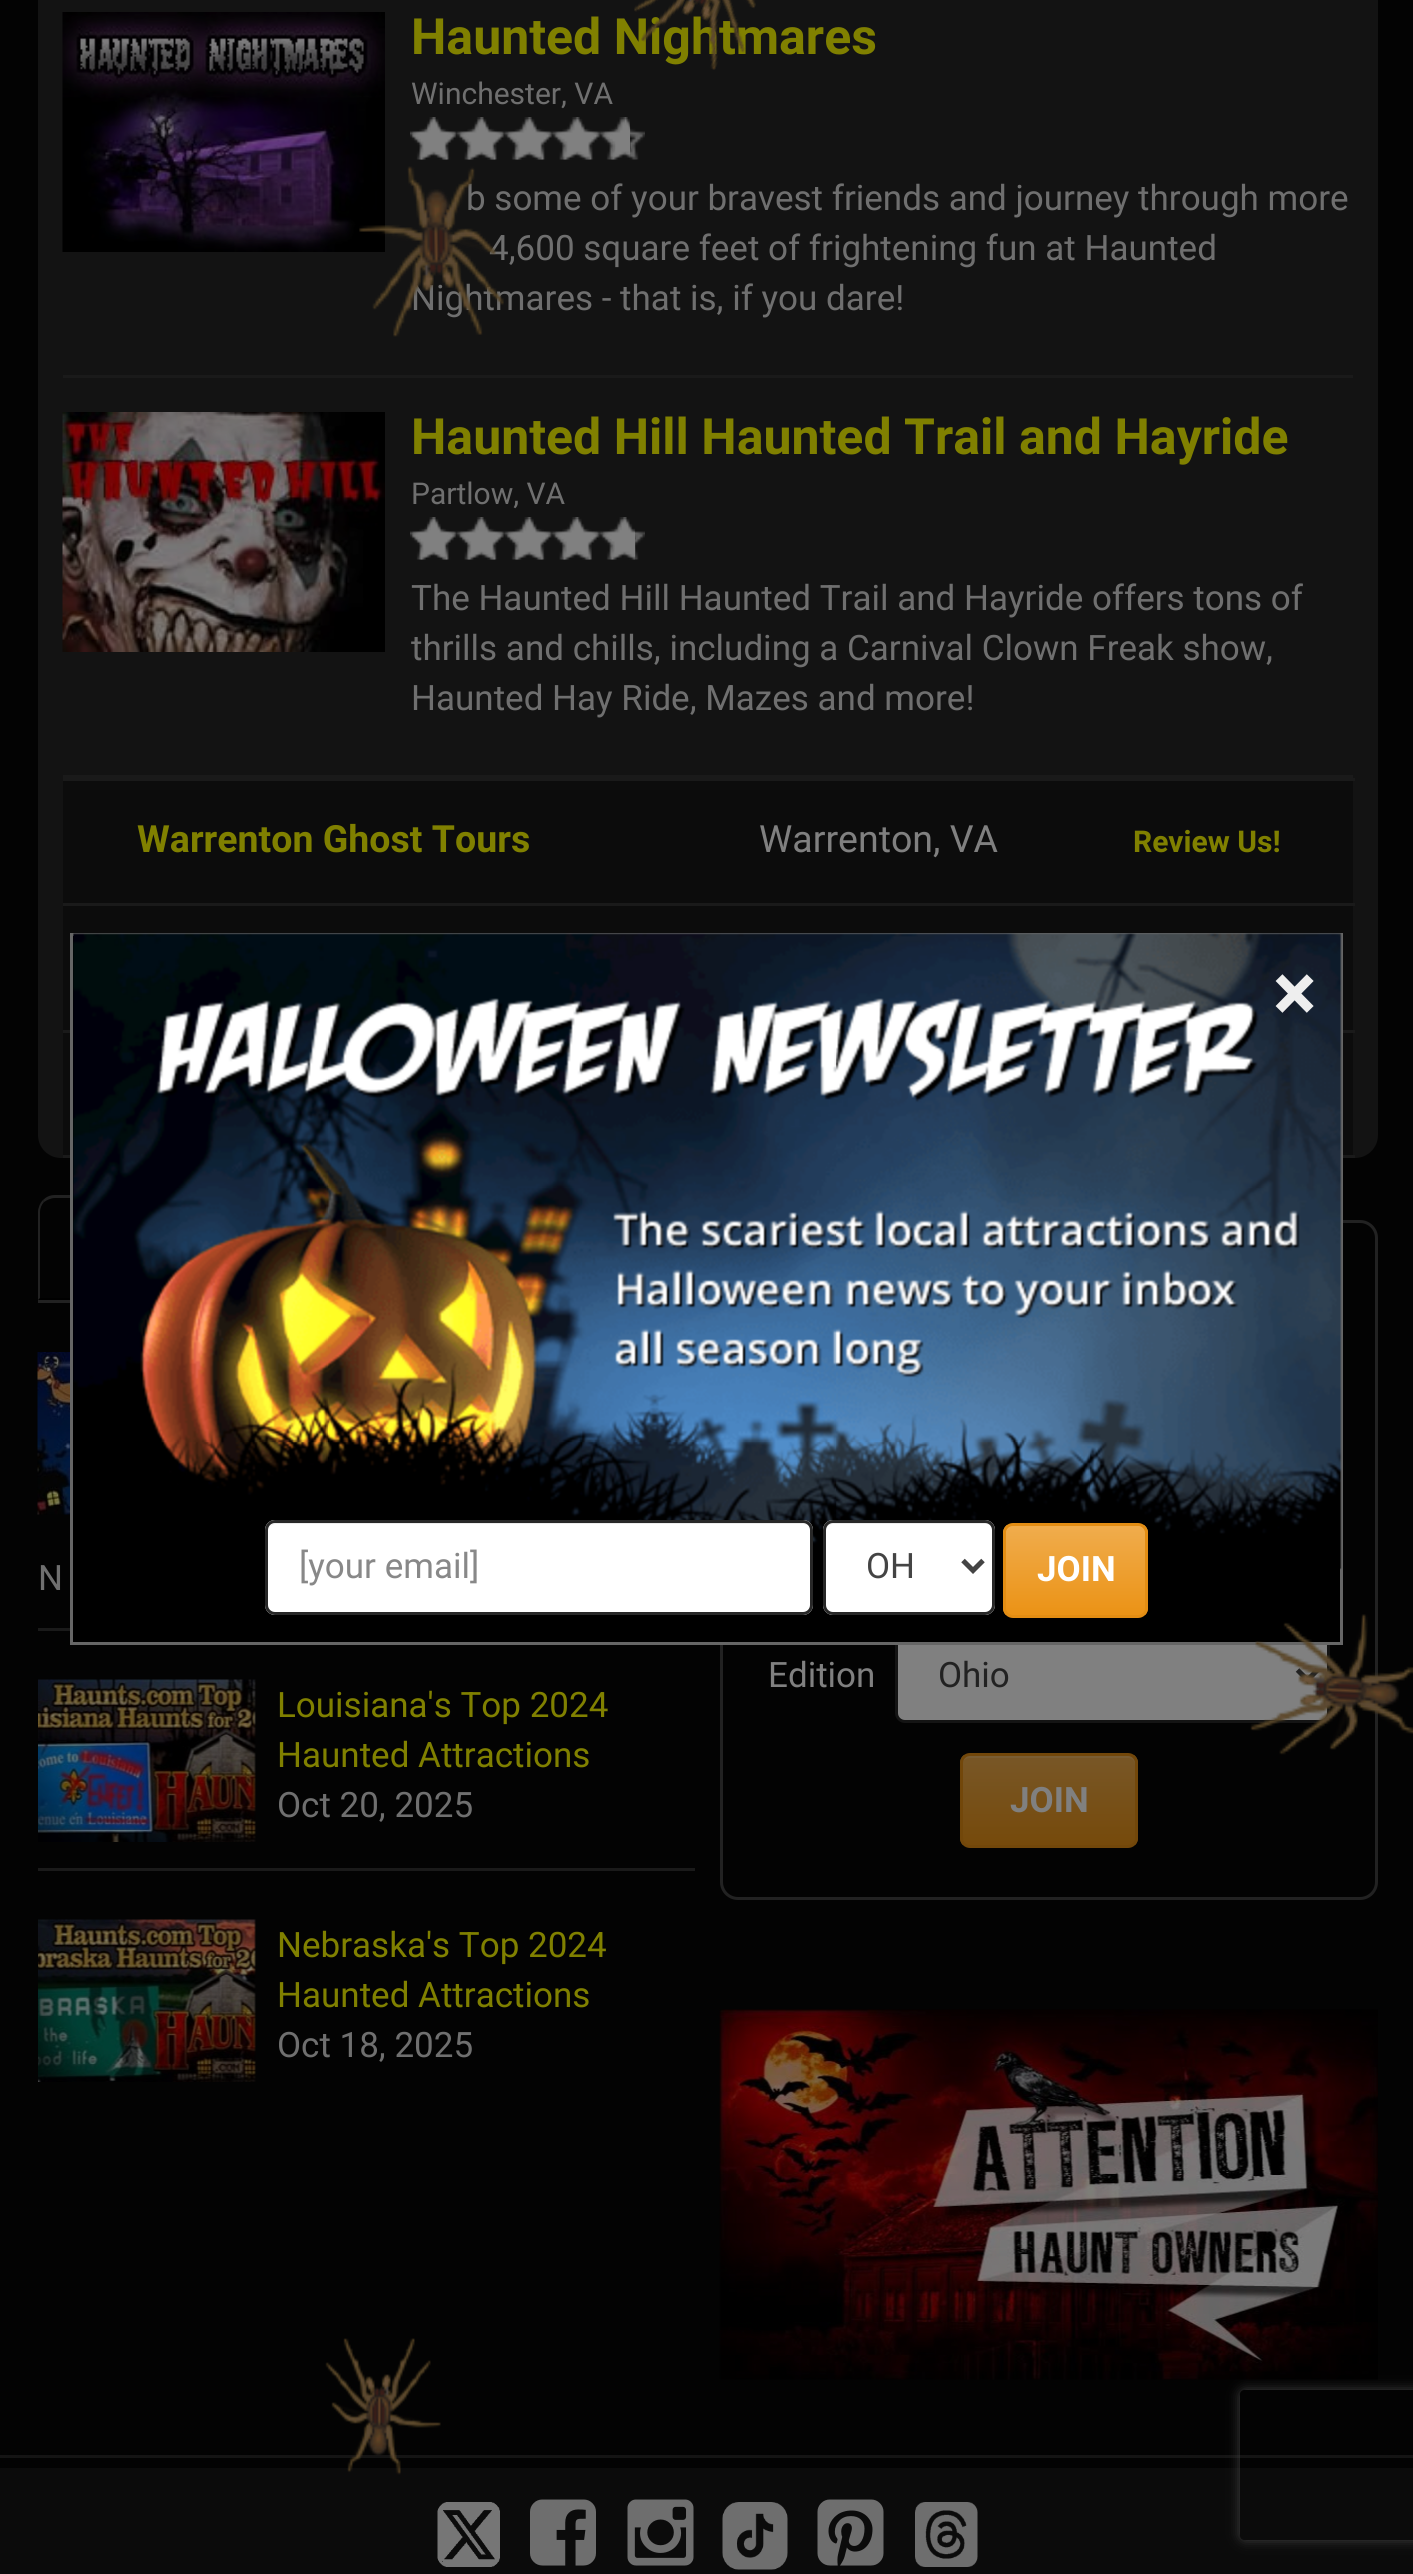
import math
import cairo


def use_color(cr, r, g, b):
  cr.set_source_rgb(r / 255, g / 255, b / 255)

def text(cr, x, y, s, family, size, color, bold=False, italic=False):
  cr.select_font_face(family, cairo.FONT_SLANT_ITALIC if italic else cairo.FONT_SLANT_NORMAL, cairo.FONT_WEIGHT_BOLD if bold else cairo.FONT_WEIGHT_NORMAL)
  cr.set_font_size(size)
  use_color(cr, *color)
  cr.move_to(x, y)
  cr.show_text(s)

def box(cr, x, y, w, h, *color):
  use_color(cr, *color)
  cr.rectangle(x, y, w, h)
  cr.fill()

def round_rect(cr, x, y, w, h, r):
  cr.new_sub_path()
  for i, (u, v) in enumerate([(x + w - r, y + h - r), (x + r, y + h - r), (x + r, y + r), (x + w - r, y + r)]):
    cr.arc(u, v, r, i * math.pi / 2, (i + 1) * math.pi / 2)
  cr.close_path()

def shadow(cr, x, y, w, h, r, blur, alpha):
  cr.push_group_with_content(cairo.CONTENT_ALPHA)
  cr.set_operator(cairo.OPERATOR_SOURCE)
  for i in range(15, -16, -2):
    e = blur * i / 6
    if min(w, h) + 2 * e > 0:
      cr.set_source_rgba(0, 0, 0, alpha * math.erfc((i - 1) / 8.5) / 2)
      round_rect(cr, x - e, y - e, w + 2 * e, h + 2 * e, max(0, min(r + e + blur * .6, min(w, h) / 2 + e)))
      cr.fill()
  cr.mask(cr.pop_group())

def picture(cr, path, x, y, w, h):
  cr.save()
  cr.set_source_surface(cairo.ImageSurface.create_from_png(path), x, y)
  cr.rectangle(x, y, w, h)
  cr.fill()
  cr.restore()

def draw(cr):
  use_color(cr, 3, 3, 3)
  cr.paint()
  use_color(cr, 19, 19, 19)
  round_rect(cr, 38, -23, 1340, 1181, 23)
  cr.fill()
  box(cr, 63, 375, 1290, 3, 26, 26, 26)
  picture(cr, "img_02.png", 62, 12, 323, 240)
  picture(cr, "img_03.png", 410, 117, 235, 43)
  picture(cr, "img_04.png", 410, 117, 220, 43)
  box(cr, 63, 775, 1290, 3, 26, 26, 26)
  picture(cr, "img_05.png", 62, 412, 323, 240)
  picture(cr, "img_03.png", 410, 517, 235, 43)
  picture(cr, "img_06.png", 410, 517, 225, 43)
  box(cr, 63, 781, 1290, 374, 12, 12, 12)
  box(cr, 63, 778, 1292, 3, 26, 26, 26)
  box(cr, 63, 903, 1292, 3, 26, 26, 26)
  box(cr, 63, 1030, 7, 3, 26, 26, 26)
  box(cr, 1343, 1030, 12, 3, 26, 26, 26)
  box(cr, 63, 1155, 7, 3, 26, 26, 26)
  box(cr, 1343, 1155, 12, 3, 26, 26, 26)
  box(cr, 38, 1300, 32, 3, 34, 34, 34)
  cr.new_path()
  cr.move_to(55, 1195)
  cr.curve_to(50, 1195, 46, 1197, 43, 1200)
  cr.line_to(44, 1202)
  cr.curve_to(47, 1200, 51, 1198, 55, 1198)
  cr.line_to(262, 1198)
  cr.curve_to(266, 1198, 270, 1199, 273, 1202)
  cr.line_to(275, 1200)
  cr.curve_to(272, 1197, 267, 1195, 262, 1195)
  cr.close_path()
  cr.fill()
  use_color(cr, 0, 0, 0)
  cr.new_path()
  cr.move_to(280, 1300)
  cr.line_to(278, 1298)
  cr.line_to(40, 1298)
  cr.line_to(38, 1300)
  cr.close_path()
  cr.fill()
  use_color(cr, 34, 34, 34)
  cr.new_path()
  cr.move_to(43, 1200)
  cr.curve_to(40, 1203, 38, 1208, 38, 1212)
  cr.line_to(38, 1300)
  cr.line_to(40, 1298)
  cr.line_to(40, 1212)
  cr.curve_to(40, 1208, 42, 1204, 44, 1202)
  cr.close_path()
  cr.fill()
  box(cr, 38, 1628, 32, 3, 26, 26, 26)
  picture(cr, "img_07.png", 37, 1352, 33, 163)
  box(cr, 38, 1868, 657, 3, 26, 26, 26)
  picture(cr, "img_08.png", 38, 1679, 218, 163)
  picture(cr, "img_09.png", 38, 1919, 218, 163)
  round_rect(cr, 721.5, 1221.5, 655, 677, 16.5)
  use_color(cr, 34, 34, 34)
  cr.set_line_width(3)
  cr.stroke()
  use_color(cr, 128, 128, 128)
  round_rect(cr, 896.5, 1629.5, 432, 92, 8.5)
  cr.fill_preserve()
  use_color(cr, 20, 20, 20)
  cr.stroke()
  cr.new_path()
  cr.move_to(1297.5, 1670)
  cr.line_to(1307.5, 1680)
  cr.line_to(1317.5, 1670)
  use_color(cr, 34, 34, 34)
  cr.set_line_width(5)
  cr.stroke()
  cr.save()
  round_rect(cr, 960, 1753, 178, 95, 10)
  cr.clip()
  gradient = cairo.LinearGradient(1049, 1755, 1049, 1845)
  gradient.add_color_stop_rgba(0, 0.471, 0.341, 0.153, 1)
  gradient.add_color_stop_rgba(1, 0.463, 0.29, 0.043, 1)
  cr.set_source(gradient)
  cr.rectangle(960, 1755, 178, 90)
  cr.fill()
  cr.restore()
  cr.set_source_rgba(0.502, 0.502, 0.502, 0.15)
  cr.new_path()
  cr.move_to(970, 1758)
  cr.line_to(1128, 1758)
  cr.curve_to(1132, 1758, 1135, 1761, 1135, 1765)
  cr.line_to(1135, 1763)
  cr.curve_to(1135, 1759, 1131, 1755, 1127, 1755)
  cr.line_to(971, 1755)
  cr.curve_to(967, 1755, 964, 1758, 963, 1761)
  cr.curve_to(965, 1759, 967, 1758, 970, 1758)
  cr.close_path()
  cr.fill()
  round_rect(cr, 961.5, 1754.5, 175, 92, 8.5)
  use_color(cr, 114, 71, 10)
  cr.set_line_width(3)
  cr.stroke()
  box(cr, 0, 2455, 1413, 3, 20, 20, 20)
  box(cr, 0, 2468, 1413, 106, 11, 11, 11)
  cr.save()
  cr.set_fill_rule(cairo.FILL_RULE_EVEN_ODD)
  cr.new_path()
  cr.move_to(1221, 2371)
  cr.line_to(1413, 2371)
  cr.line_to(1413, 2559)
  cr.line_to(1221, 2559)
  cr.close_path()
  cr.move_to(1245, 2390)
  cr.line_to(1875, 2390)
  cr.curve_to(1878, 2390, 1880, 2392, 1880, 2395)
  cr.line_to(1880, 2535)
  cr.curve_to(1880, 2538, 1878, 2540, 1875, 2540)
  cr.line_to(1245, 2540)
  cr.curve_to(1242, 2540, 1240, 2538, 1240, 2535)
  cr.line_to(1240, 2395)
  cr.curve_to(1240, 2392, 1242, 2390, 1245, 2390)
  cr.close_path()
  cr.clip()
  use_color(cr, 64, 64, 64)
  shadow(cr, 1240, 2390, 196, 150, 5, 6, 1)
  cr.restore()
  picture(cr, "img_10.png", 719, 2009, 659, 371)
  use_color(cr, 0, 0, 0)
  cr.rectangle(71.5, 934.5, 1270, 709)
  cr.fill_preserve()
  use_color(cr, 102, 102, 102)
  cr.stroke()
  picture(cr, "img_12.png", 73, 933, 1269, 637)
  use_color(cr, 255, 255, 255)
  round_rect(cr, 265, 1520, 548, 95, 10)
  cr.fill()
  use_color(cr, 236, 236, 236)
  cr.new_path()
  cr.move_to(276, 1524)
  cr.line_to(803, 1524)
  cr.curve_to(805, 1524, 806, 1525, 808, 1525)
  cr.curve_to(806, 1524, 804, 1523, 802, 1523)
  cr.line_to(276, 1523)
  cr.curve_to(272, 1523, 268, 1527, 268, 1531)
  cr.curve_to(268, 1527, 272, 1524, 276, 1524)
  cr.close_path()
  cr.fill()
  round_rect(cr, 266.5, 1521.5, 545, 92, 8.5)
  use_color(cr, 40, 40, 40)
  cr.stroke()
  use_color(cr, 255, 255, 255)
  round_rect(cr, 823, 1520, 172, 95, 10)
  cr.fill()
  use_color(cr, 236, 236, 236)
  cr.new_path()
  cr.move_to(833, 1524)
  cr.line_to(986, 1524)
  cr.curve_to(990, 1524, 993, 1527, 993, 1531)
  cr.curve_to(993, 1527, 989, 1523, 985, 1523)
  cr.line_to(833, 1523)
  cr.curve_to(829, 1523, 825, 1527, 825, 1531)
  cr.line_to(825, 1605)
  cr.curve_to(825, 1607, 826, 1609, 827, 1611)
  cr.curve_to(827, 1609, 826, 1608, 826, 1606)
  cr.line_to(826, 1531)
  cr.curve_to(826, 1527, 829, 1524, 833, 1524)
  cr.close_path()
  cr.fill()
  round_rect(cr, 824.5, 1521.5, 169, 92, 8.5)
  use_color(cr, 40, 40, 40)
  cr.stroke()
  cr.new_path()
  cr.move_to(963, 1560.5)
  cr.line_to(973, 1570.5)
  cr.line_to(983, 1560.5)
  use_color(cr, 68, 68, 68)
  cr.set_line_width(5)
  cr.stroke()
  cr.save()
  round_rect(cr, 1003, 1523, 145, 95, 10)
  cr.clip()
  gradient = cairo.LinearGradient(1076, 1524, 1076, 1614)
  gradient.add_color_stop_rgba(0, 0.941, 0.678, 0.306, 1)
  gradient.add_color_stop_rgba(1, 0.922, 0.576, 0.086, 1)
  cr.set_source(gradient)
  cr.rectangle(1003, 1525, 145, 90)
  cr.fill()
  cr.restore()
  cr.set_source_rgba(1, 1, 1, 0.15)
  cr.new_path()
  cr.move_to(1013, 1526)
  cr.line_to(1138, 1526)
  cr.curve_to(1140, 1526, 1142, 1527, 1144, 1529)
  cr.curve_to(1142, 1527, 1140, 1525, 1137, 1525)
  cr.line_to(1013, 1525)
  cr.curve_to(1009, 1525, 1005, 1529, 1005, 1533)
  cr.line_to(1005, 1607)
  cr.curve_to(1005, 1609, 1006, 1610, 1006, 1612)
  cr.line_to(1006, 1609)
  cr.line_to(1006, 1534)
  cr.curve_to(1006, 1530, 1009, 1526, 1013, 1526)
  cr.close_path()
  cr.fill()
  round_rect(cr, 1004.5, 1524.5, 142, 92, 8.5)
  use_color(cr, 227, 141, 19)
  cr.set_line_width(3)
  cr.stroke()
  picture(cr, "img_13.png", 1250, 1614, 163, 141)
  picture(cr, "img_14.png", 325, 2338, 116, 137)
  picture(cr, "img_15.png", 437, 2502, 63, 65)
  picture(cr, "img_16.png", 530, 2499, 66, 67)
  picture(cr, "img_17.png", 627, 2499, 67, 67)
  picture(cr, "img_18.png", 722, 2502, 66, 68)
  picture(cr, "img_19.png", 817, 2499, 67, 67)
  picture(cr, "img_20.png", 915, 2502, 63, 65)
  text(cr, 411, 54, "Haunted Nightmares", "Roboto", 50, (128, 128, 0), bold=True)
  picture(cr, "img_01.png", 634, 0, 122, 70)
  text(cr, 411, 104, "Winchester, VA", "Roboto", 30, (111, 111, 111))
  text(cr, 466, 210, "b some of your bravest friends and journey through more", "Roboto", 35, (111, 111, 111))
  text(cr, 489, 260, "4,600 square feet of frightening fun at Haunted", "Roboto", 35, (111, 111, 111))
  text(cr, 411, 310, "Nightmares - that is, if you dare!", "Roboto", 35, (111, 111, 111))
  text(cr, 411, 454, "Haunted Hill Haunted Trail and Hayride", "Roboto", 50, (128, 128, 0), bold=True)
  text(cr, 411, 504, "Partlow, VA", "Roboto", 30, (111, 111, 111))
  text(cr, 411, 610, "The Haunted Hill Haunted Trail and Hayride offers tons of", "Roboto", 35, (111, 111, 111))
  text(cr, 411, 660, "thrills and chills, including a Carnival Clown Freak show,", "Roboto", 35, (111, 111, 111))
  text(cr, 411, 710, "Haunted Hay Ride, Mazes and more!", "Roboto", 35, (111, 111, 111))
  text(cr, 137, 852, "Warrenton Ghost Tours", "Roboto", 37.5, (128, 128, 0), bold=True)
  text(cr, 759, 852, "Warrenton, VA", "Roboto", 37.5, (128, 128, 128))
  text(cr, 1133, 852, "Review Us!", "Roboto", 30, (128, 128, 0), bold=True)
  text(cr, 38, 1590, "N", "Roboto", 35, (111, 111, 111))
  text(cr, 277, 1717, "Louisiana's Top 2024", "Roboto", 35, (128, 128, 0))
  text(cr, 277, 1767, "Haunted Attractions", "Roboto", 35, (128, 128, 0))
  text(cr, 277, 1817, "Oct 20, 2025", "Roboto", 35, (111, 111, 111))
  text(cr, 277, 1957, "Nebraska's Top 2024", "Roboto", 35, (128, 128, 0))
  text(cr, 277, 2007, "Haunted Attractions", "Roboto", 35, (128, 128, 0))
  text(cr, 277, 2057, "Oct 18, 2025", "Roboto", 35, (111, 111, 111))
  text(cr, 768, 1687, "Edition", "Roboto", 35, (128, 128, 128))
  text(cr, 938, 1687, "Ohio", "Roboto", 35, (34, 34, 34))
  text(cr, 1010, 1812, "JOIN", "Roboto", 35, (128, 128, 128), bold=True)
  picture(cr, "img_11.png", 359, 166, 145, 171)
  text(cr, 1273, 1021, "×", "Roboto", 82, (238, 238, 238), bold=True)
  text(cr, 299, 1578, "[your email]", "Roboto", 35, (136, 136, 136))
  text(cr, 866, 1578, "OH", "Roboto", 35, (68, 68, 68))
  text(cr, 1037, 1581, "JOIN", "Roboto", 35, (255, 255, 255), bold=True)


surface = cairo.ImageSurface(cairo.FORMAT_RGB24, 1413, 2574)
cr = cairo.Context(surface)
options = cairo.FontOptions()
options.set_hint_metrics(cairo.HINT_METRICS_OFF)
options.set_hint_style(cairo.HINT_STYLE_NONE)
cr.set_font_options(options)
cr.set_miter_limit(4)
draw(cr)
surface.write_to_png("out.png")
